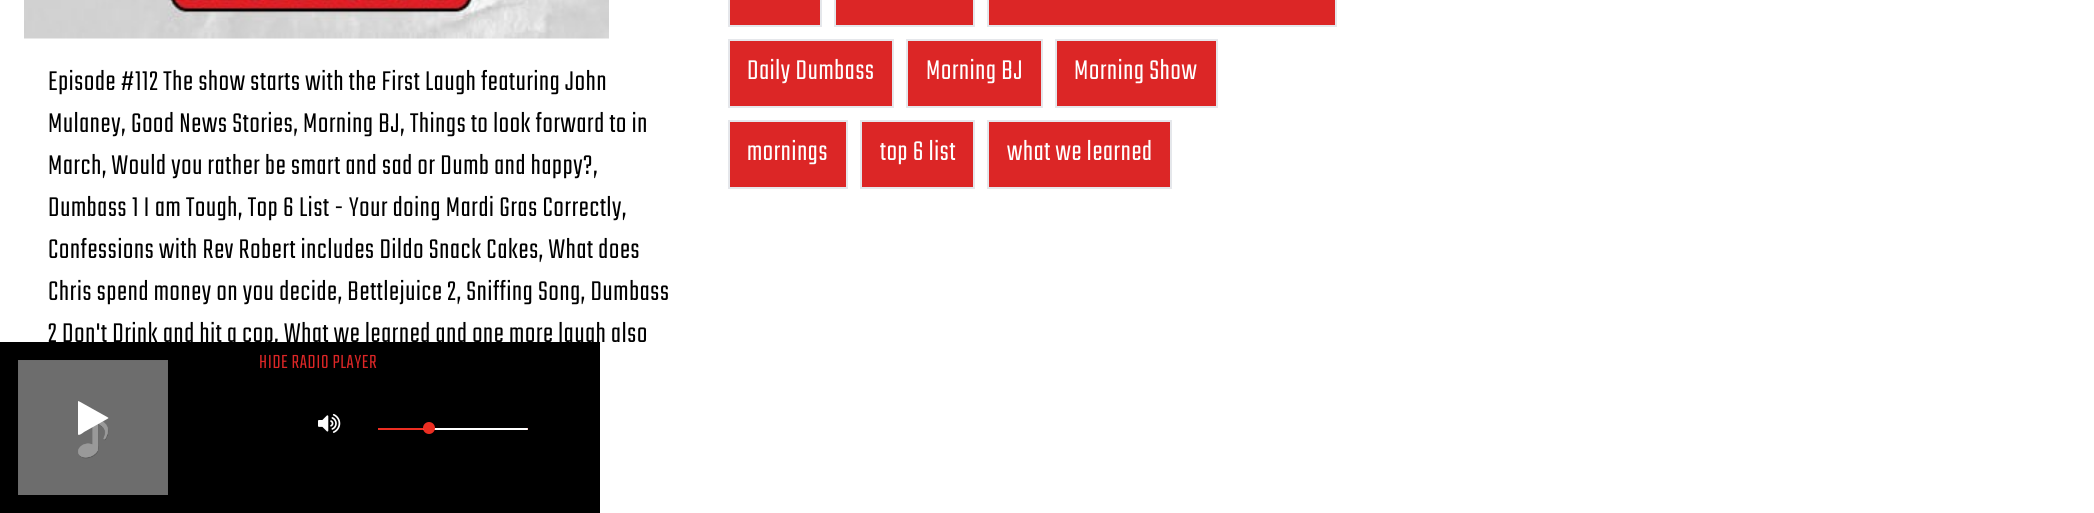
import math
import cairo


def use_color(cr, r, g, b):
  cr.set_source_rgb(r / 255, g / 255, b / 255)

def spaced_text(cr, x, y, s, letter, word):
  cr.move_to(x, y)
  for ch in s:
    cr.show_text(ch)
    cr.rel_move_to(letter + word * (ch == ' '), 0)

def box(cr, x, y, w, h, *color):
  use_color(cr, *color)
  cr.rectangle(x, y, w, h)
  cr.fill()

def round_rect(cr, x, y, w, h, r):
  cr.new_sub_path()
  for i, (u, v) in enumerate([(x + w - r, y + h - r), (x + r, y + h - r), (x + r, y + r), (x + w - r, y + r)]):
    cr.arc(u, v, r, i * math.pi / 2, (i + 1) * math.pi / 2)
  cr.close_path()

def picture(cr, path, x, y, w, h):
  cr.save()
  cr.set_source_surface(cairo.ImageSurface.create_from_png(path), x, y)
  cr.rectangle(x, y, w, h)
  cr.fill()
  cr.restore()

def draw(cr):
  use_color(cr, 255, 255, 255)
  cr.paint()
  picture(cr, "img_01.png", 24, 0, 585, 39)
  use_color(cr, 220, 38, 38)
  cr.rectangle(729, -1, 92, 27)
  cr.fill_preserve()
  use_color(cr, 229, 231, 235)
  cr.stroke()
  use_color(cr, 220, 38, 38)
  cr.rectangle(835, -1, 139, 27)
  cr.fill_preserve()
  use_color(cr, 229, 231, 235)
  cr.stroke()
  use_color(cr, 220, 38, 38)
  cr.rectangle(988, -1, 348, 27)
  cr.fill_preserve()
  use_color(cr, 229, 231, 235)
  cr.stroke()
  use_color(cr, 220, 38, 38)
  cr.rectangle(729, 40, 164, 67)
  cr.fill_preserve()
  use_color(cr, 229, 231, 235)
  cr.stroke()
  use_color(cr, 220, 38, 38)
  cr.rectangle(907, 40, 135, 67)
  cr.fill_preserve()
  use_color(cr, 229, 231, 235)
  cr.stroke()
  use_color(cr, 220, 38, 38)
  cr.rectangle(1056, 40, 161, 67)
  cr.fill_preserve()
  use_color(cr, 229, 231, 235)
  cr.stroke()
  use_color(cr, 220, 38, 38)
  cr.rectangle(729, 121, 118, 67)
  cr.fill_preserve()
  use_color(cr, 229, 231, 235)
  cr.stroke()
  use_color(cr, 220, 38, 38)
  cr.rectangle(861, 121, 113, 67)
  cr.fill_preserve()
  use_color(cr, 229, 231, 235)
  cr.stroke()
  use_color(cr, 220, 38, 38)
  cr.rectangle(988, 121, 183, 67)
  cr.fill_preserve()
  use_color(cr, 229, 231, 235)
  cr.stroke()
  box(cr, 0, 342, 600, 171, 0, 0, 0)
  picture(cr, "img_02.png", 18, 360, 150, 135)
  cr.set_source_rgba(0, 0, 0, 0.4)
  cr.rectangle(18, 360, 150, 135)
  cr.fill()
  use_color(cr, 255, 255, 255)
  cr.new_path()
  cr.move_to(108, 418.5)
  cr.line_to(84, 432)
  cr.curve_to(83.5, 432.5, 79, 436, 78, 434.5)
  cr.line_to(78, 401.5)
  cr.line_to(78.5, 401)
  cr.line_to(108, 417.5)
  cr.line_to(108.5, 418)
  cr.close_path()
  cr.fill()
  picture(cr, "img_03.png", 318, 413, 23, 20)
  box(cr, 378, 428, 150, 2, 236, 46, 34)
  use_color(cr, 255, 255, 255)
  round_rect(cr, 423, 428, 105, 2, 1)
  cr.fill()
  use_color(cr, 236, 46, 34)
  cr.arc(429, 428, 6, 0, 2 * math.pi)
  cr.fill()
  cr.select_font_face("Teko Light")
  cr.set_font_size(30)
  use_color(cr, 0, 0, 0)
  spaced_text(cr, 48, 90, "Episode #112 The show starts with the First Laugh featuring John", 0.75, 0)
  spaced_text(cr, 48, 132, "Mulaney, Good News Stories, Morning BJ, Things to look forward to in", 0.75, 0)
  spaced_text(cr, 48, 174, "March, Would you rather be smart and sad or Dumb and happy?,", 0.75, 0)
  spaced_text(cr, 48, 216, "Dumbass 1 I am Tough, Top 6 List - Your doing Mardi Gras Correctly,", 0.75, 0)
  spaced_text(cr, 48, 258, "Confessions with Rev Robert includes Dildo Snack Cakes, What does", 0.75, 0)
  spaced_text(cr, 48, 300, "Chris spend money on you decide, Bettlejuice 2, Sniffing Song, Dumbass", 0.75, 0)
  spaced_text(cr, 48, 342, "2 Don't Drink and hit a cop, What we learned and one more laugh also", 0.75, 0)
  use_color(cr, 255, 255, 255)
  spaced_text(cr, 747, 79, "Daily Dumbass", 0.75, 0)
  spaced_text(cr, 926, 79, "Morning BJ", 0.75, 0)
  spaced_text(cr, 1074, 79, "Morning Show", 0.75, 0)
  spaced_text(cr, 747, 160, "mornings", 0.75, 0)
  spaced_text(cr, 880, 160, "top 6 list", 0.75, 0)
  spaced_text(cr, 1007, 160, "what we learned", 0.75, 0)
  cr.set_font_size(21)
  use_color(cr, 220, 38, 38)
  spaced_text(cr, 259, 368, "HIDE RADIO PLAYER", 0.6, 0)


surface = cairo.ImageSurface(cairo.FORMAT_RGB24, 2094, 513)
cr = cairo.Context(surface)
options = cairo.FontOptions()
options.set_hint_metrics(cairo.HINT_METRICS_OFF)
options.set_hint_style(cairo.HINT_STYLE_NONE)
cr.set_font_options(options)
cr.set_miter_limit(4)
draw(cr)
surface.write_to_png("out.png")
